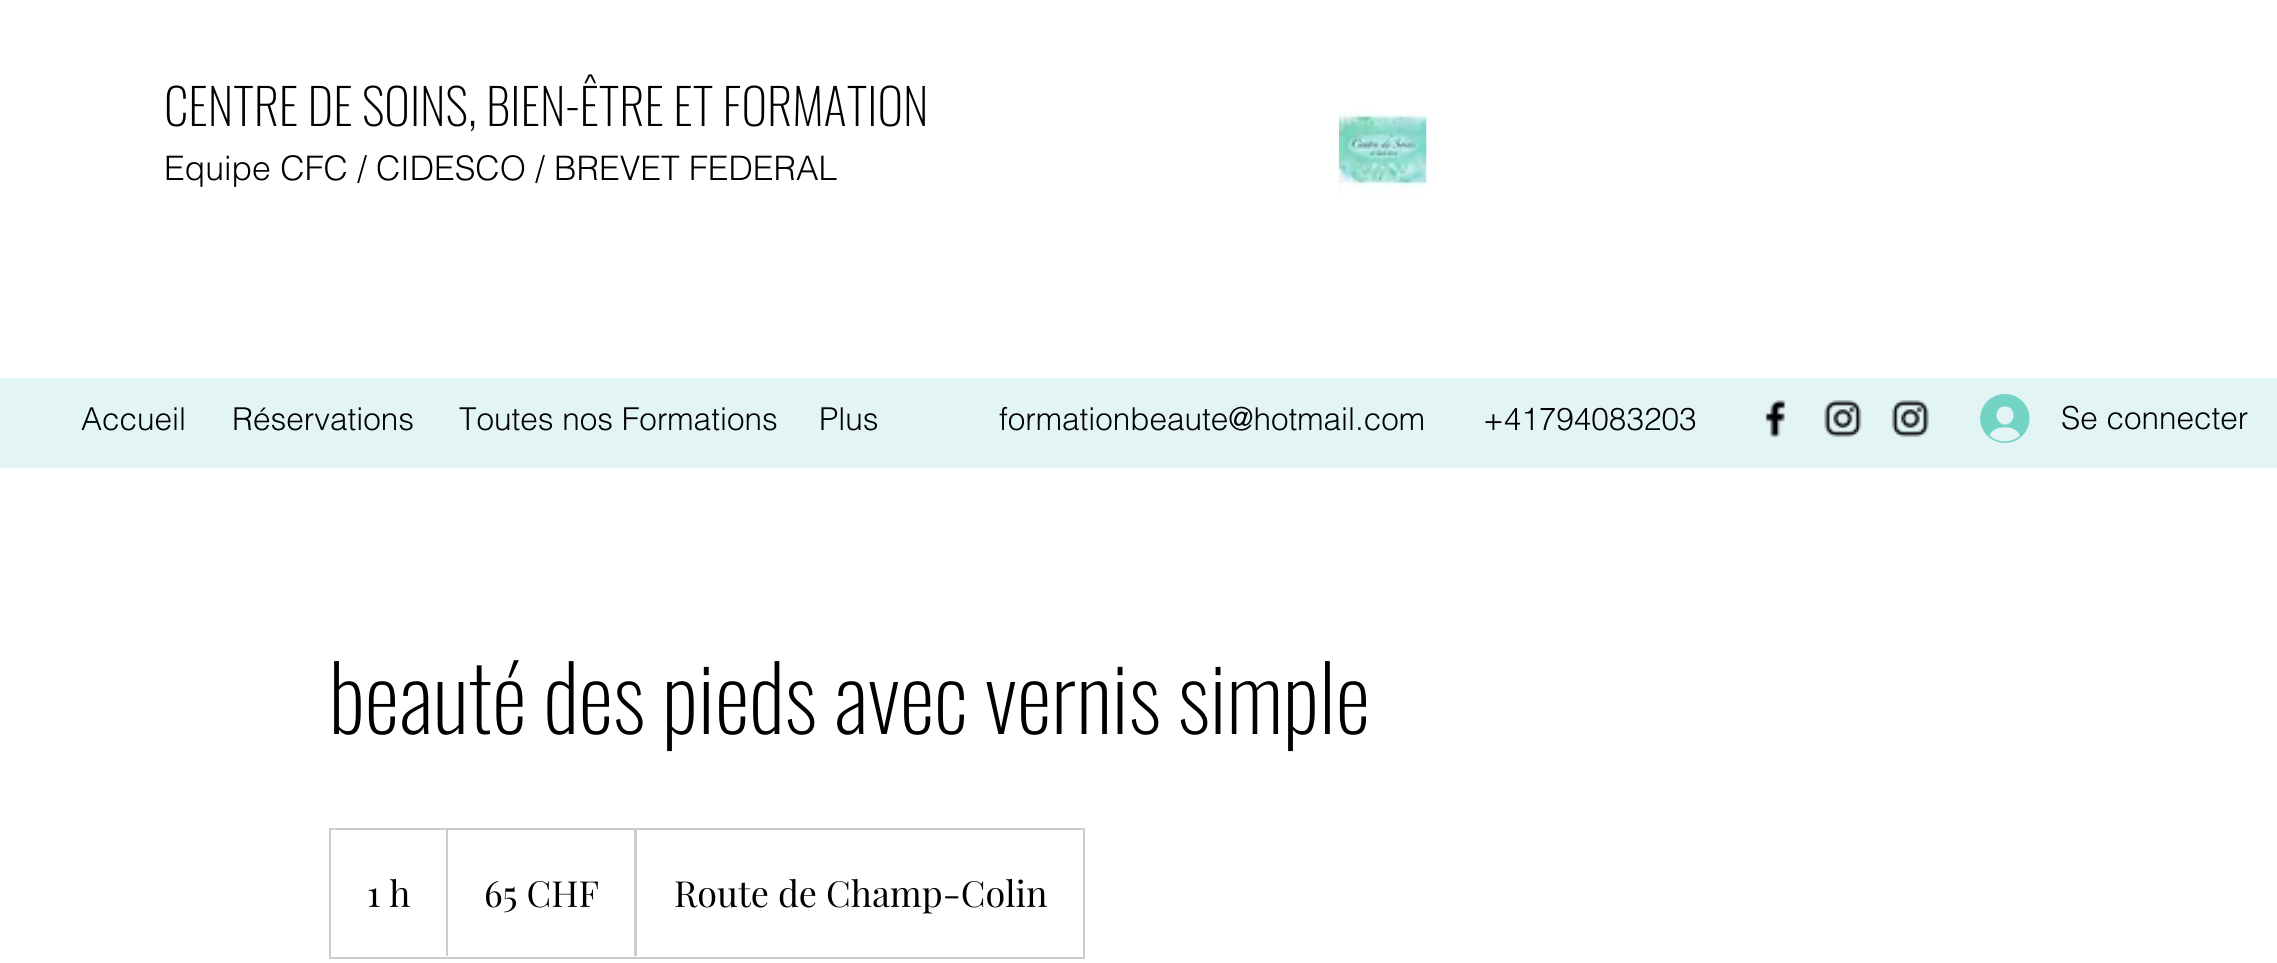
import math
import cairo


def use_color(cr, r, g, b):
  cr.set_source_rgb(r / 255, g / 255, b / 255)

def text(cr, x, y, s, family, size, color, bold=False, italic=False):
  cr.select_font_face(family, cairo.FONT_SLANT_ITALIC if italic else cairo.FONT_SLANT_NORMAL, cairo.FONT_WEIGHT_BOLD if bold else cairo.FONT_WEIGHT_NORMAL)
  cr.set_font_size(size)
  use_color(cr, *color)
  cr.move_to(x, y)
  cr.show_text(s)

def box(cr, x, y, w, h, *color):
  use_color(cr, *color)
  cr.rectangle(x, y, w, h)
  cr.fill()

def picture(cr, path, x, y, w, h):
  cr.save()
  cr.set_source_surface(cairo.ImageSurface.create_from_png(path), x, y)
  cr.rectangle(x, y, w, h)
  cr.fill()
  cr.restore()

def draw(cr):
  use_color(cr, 255, 255, 255)
  cr.paint()
  picture(cr, "img_01.png", 1338, 108, 89, 90)
  box(cr, 0, 378, 2277, 90, 227, 244, 244)
  picture(cr, "img_02.png", 1765, 400, 21, 38)
  picture(cr, "img_03.png", 1824, 400, 38, 38)
  picture(cr, "img_04.png", 1891, 400, 38, 38)
  picture(cr, "img_05.png", 1980, 394, 50, 49)
  cr.rectangle(330, 829, 754, 129)
  use_color(cr, 204, 204, 204)
  cr.stroke()
  cr.save()
  cr.rectangle(331, 830, 751, 126)
  cr.clip()
  cr.new_path()
  cr.move_to(446, 956)
  cr.line_to(446, 828)
  cr.line_to(448, 830)
  cr.line_to(448, 956)
  cr.close_path()
  cr.fill()
  cr.new_path()
  cr.move_to(634, 956)
  cr.line_to(634, 828)
  cr.line_to(637, 830)
  cr.line_to(637, 956)
  cr.close_path()
  cr.fill()
  cr.restore()
  text(cr, 164, 126, "CENTRE DE SOINS, BIEN-ÊTRE ET FORMATION", "Oswald ExtraLight", 49.5, (0, 0, 0))
  text(cr, 164, 180, "Equipe CFC / CIDESCO / BREVET FEDERAL", "helvetica Light", 33.75, (0, 0, 0))
  text(cr, 81, 430, "Accueil", "helvetica Light", 31.5, (0, 0, 0))
  text(cr, 232, 430, "Réservations", "helvetica Light", 31.5, (0, 0, 0))
  text(cr, 459, 430, "Toutes nos Formations", "helvetica Light", 31.5, (0, 0, 0))
  text(cr, 819, 430, "Plus", "helvetica Light", 31.5, (0, 0, 0))
  text(cr, 999, 430, "formationbeaute@hotmail.com", "helvetica Light", 31.5, (0, 0, 0))
  text(cr, 1483, 430, "+41794083203", "helvetica Light", 31.5, (0, 0, 0))
  text(cr, 2061, 429, "Se connecter", "helvetica Light", 31.5, (0, 0, 0))
  text(cr, 329, 734, "beauté des pieds avec vernis simple", "Oswald ExtraLight", 90, (0, 0, 0))
  text(cr, 367, 907, "1 h", "Playfair Display", 36, (0, 0, 0))
  text(cr, 484, 907, "65 CHF", "Playfair Display", 36, (0, 0, 0))
  text(cr, 674, 907, "Route de Champ-Colin", "Playfair Display", 36, (0, 0, 0))


surface = cairo.ImageSurface(cairo.FORMAT_RGB24, 2277, 963)
cr = cairo.Context(surface)
options = cairo.FontOptions()
options.set_hint_metrics(cairo.HINT_METRICS_OFF)
options.set_hint_style(cairo.HINT_STYLE_NONE)
cr.set_font_options(options)
cr.set_miter_limit(4)
draw(cr)
surface.write_to_png("out.png")
